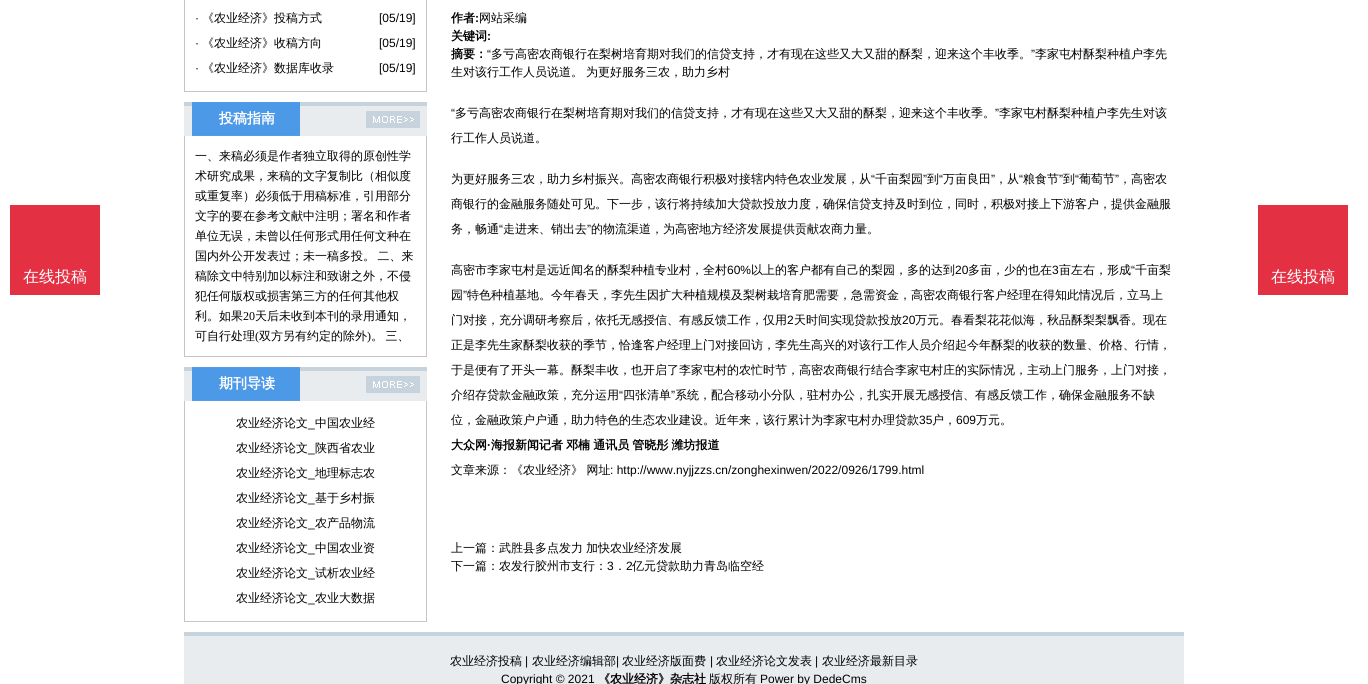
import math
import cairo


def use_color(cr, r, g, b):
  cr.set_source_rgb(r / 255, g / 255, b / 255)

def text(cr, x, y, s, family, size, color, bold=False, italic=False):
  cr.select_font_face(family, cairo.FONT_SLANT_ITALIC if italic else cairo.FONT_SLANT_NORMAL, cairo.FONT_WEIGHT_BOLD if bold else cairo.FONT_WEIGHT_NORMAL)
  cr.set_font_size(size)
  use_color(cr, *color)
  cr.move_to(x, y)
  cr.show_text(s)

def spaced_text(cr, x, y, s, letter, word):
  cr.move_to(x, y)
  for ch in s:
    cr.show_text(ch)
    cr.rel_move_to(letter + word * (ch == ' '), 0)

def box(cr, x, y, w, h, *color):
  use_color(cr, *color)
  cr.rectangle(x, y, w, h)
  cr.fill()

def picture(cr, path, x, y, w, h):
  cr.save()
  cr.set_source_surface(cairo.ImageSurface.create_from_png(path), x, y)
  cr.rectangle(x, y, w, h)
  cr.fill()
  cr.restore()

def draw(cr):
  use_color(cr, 255, 255, 255)
  cr.paint()
  box(cr, 10, 205, 90, 90, 227, 48, 67)
  box(cr, 426, 0, 1, 92, 197, 197, 197)
  box(cr, 184, 91, 243, 1, 197, 197, 197)
  box(cr, 184, 0, 1, 92, 197, 197, 197)
  picture(cr, "img_01.png", 184, 102, 243, 34)
  box(cr, 426, 136, 1, 221, 197, 197, 197)
  box(cr, 184, 356, 243, 1, 197, 197, 197)
  box(cr, 184, 136, 1, 221, 197, 197, 197)
  picture(cr, "img_01.png", 184, 367, 243, 34)
  box(cr, 426, 401, 1, 221, 197, 197, 197)
  box(cr, 184, 621, 243, 1, 197, 197, 197)
  box(cr, 184, 401, 1, 221, 197, 197, 197)
  box(cr, 1258, 205, 90, 90, 227, 48, 67)
  picture(cr, "img_02.png", 184, 632, 1000, 52)
  text(cr, 23, 282, "在线投稿", "WenQuanYi Zen Hei Medium", 16, (255, 255, 255))
  text(cr, 195, 22, "·", "Liberation Sans", 12, (0, 0, 0))
  text(cr, 202, 22, "《农业经济》投稿方式", "WenQuanYi Zen Hei Medium", 12, (0, 0, 0))
  text(cr, 379, 22, "[05/19]", "Liberation Sans", 12, (0, 0, 0))
  text(cr, 195, 47, "·", "Liberation Sans", 12, (0, 0, 0))
  text(cr, 202, 47, "《农业经济》收稿方向", "WenQuanYi Zen Hei Medium", 12, (0, 0, 0))
  text(cr, 379, 47, "[05/19]", "Liberation Sans", 12, (0, 0, 0))
  text(cr, 195, 72, "·", "Liberation Sans", 12, (0, 0, 0))
  text(cr, 202, 72, "《农业经济》数据库收录", "WenQuanYi Zen Hei Medium", 12, (0, 0, 0))
  text(cr, 379, 72, "[05/19]", "Liberation Sans", 12, (0, 0, 0))
  text(cr, 219, 123, "投稿指南", "WenQuanYi Zen Hei", 14, (255, 255, 255), bold=True)
  text(cr, 195, 160, "一、来稿必须是作者独立取得的原创性学", "WenQuanYi Zen Hei Medium", 12, (0, 0, 0))
  text(cr, 195, 180, "术研究成果，来稿的文字复制比（相似度", "WenQuanYi Zen Hei Medium", 12, (0, 0, 0))
  text(cr, 195, 200, "或重复率）必须低于用稿标准，引用部分", "WenQuanYi Zen Hei Medium", 12, (0, 0, 0))
  text(cr, 195, 220, "文字的要在参考文献中注明；署名和作者", "WenQuanYi Zen Hei Medium", 12, (0, 0, 0))
  text(cr, 195, 240, "单位无误，未曾以任何形式用任何文种在", "WenQuanYi Zen Hei Medium", 12, (0, 0, 0))
  spaced_text(cr, 195, 260, "国内外公开发表过；未一稿多投。 二、来", 0, -1)
  text(cr, 195, 280, "稿除文中特别加以标注和致谢之外，不侵", "WenQuanYi Zen Hei Medium", 12, (0, 0, 0))
  text(cr, 195, 300, "犯任何版权或损害第三方的任何其他权", "WenQuanYi Zen Hei Medium", 12, (0, 0, 0))
  text(cr, 195, 320, "利。如果", "WenQuanYi Zen Hei Medium", 12, (0, 0, 0))
  text(cr, 243, 320, "20", "Liberation Serif", 12, (0, 0, 0))
  text(cr, 255, 320, "天后未收到本刊的录用通知，", "WenQuanYi Zen Hei Medium", 12, (0, 0, 0))
  text(cr, 195, 340, "可自行处理", "WenQuanYi Zen Hei Medium", 12, (0, 0, 0))
  text(cr, 255, 340, "(", "Liberation Serif", 12, (0, 0, 0))
  text(cr, 259, 340, "双方另有约定的除外", "WenQuanYi Zen Hei Medium", 12, (0, 0, 0))
  text(cr, 367, 340, ")", "Liberation Serif", 12, (0, 0, 0))
  cr.select_font_face("WenQuanYi Zen Hei Medium")
  spaced_text(cr, 371, 340, "。 三、", 0, -1)
  text(cr, 219, 388, "期刊导读", "WenQuanYi Zen Hei", 14, (255, 255, 255), bold=True)
  text(cr, 236, 427, "农业经济论文", "WenQuanYi Zen Hei Medium", 12, (0, 0, 0))
  text(cr, 308, 427, "_", "Liberation Sans", 12, (0, 0, 0))
  text(cr, 315, 427, "中国农业经", "WenQuanYi Zen Hei Medium", 12, (0, 0, 0))
  text(cr, 236, 452, "农业经济论文", "WenQuanYi Zen Hei Medium", 12, (0, 0, 0))
  text(cr, 308, 452, "_", "Liberation Sans", 12, (0, 0, 0))
  text(cr, 315, 452, "陕西省农业", "WenQuanYi Zen Hei Medium", 12, (0, 0, 0))
  text(cr, 236, 477, "农业经济论文", "WenQuanYi Zen Hei Medium", 12, (0, 0, 0))
  text(cr, 308, 477, "_", "Liberation Sans", 12, (0, 0, 0))
  text(cr, 315, 477, "地理标志农", "WenQuanYi Zen Hei Medium", 12, (0, 0, 0))
  text(cr, 236, 502, "农业经济论文", "WenQuanYi Zen Hei Medium", 12, (0, 0, 0))
  text(cr, 308, 502, "_", "Liberation Sans", 12, (0, 0, 0))
  text(cr, 315, 502, "基于乡村振", "WenQuanYi Zen Hei Medium", 12, (0, 0, 0))
  text(cr, 236, 527, "农业经济论文", "WenQuanYi Zen Hei Medium", 12, (0, 0, 0))
  text(cr, 308, 527, "_", "Liberation Sans", 12, (0, 0, 0))
  text(cr, 315, 527, "农产品物流", "WenQuanYi Zen Hei Medium", 12, (0, 0, 0))
  text(cr, 236, 552, "农业经济论文", "WenQuanYi Zen Hei Medium", 12, (0, 0, 0))
  text(cr, 308, 552, "_", "Liberation Sans", 12, (0, 0, 0))
  text(cr, 315, 552, "中国农业资", "WenQuanYi Zen Hei Medium", 12, (0, 0, 0))
  text(cr, 236, 577, "农业经济论文", "WenQuanYi Zen Hei Medium", 12, (0, 0, 0))
  text(cr, 308, 577, "_", "Liberation Sans", 12, (0, 0, 0))
  text(cr, 315, 577, "试析农业经", "WenQuanYi Zen Hei Medium", 12, (0, 0, 0))
  text(cr, 236, 602, "农业经济论文", "WenQuanYi Zen Hei Medium", 12, (0, 0, 0))
  text(cr, 308, 602, "_", "Liberation Sans", 12, (0, 0, 0))
  text(cr, 315, 602, "农业大数据", "WenQuanYi Zen Hei Medium", 12, (0, 0, 0))
  text(cr, 451, 22, "作者", "WenQuanYi Zen Hei", 12, (0, 0, 0), bold=True)
  text(cr, 475, 22, ":", "Liberation Sans", 12, (0, 0, 0), bold=True)
  text(cr, 479, 22, "网站采编", "WenQuanYi Zen Hei Medium", 12, (0, 0, 0))
  text(cr, 451, 40, "关键词", "WenQuanYi Zen Hei", 12, (0, 0, 0), bold=True)
  text(cr, 487, 40, ":", "Liberation Sans", 12, (0, 0, 0), bold=True)
  text(cr, 451, 58, "摘要：", "WenQuanYi Zen Hei", 12, (0, 0, 0), bold=True)
  text(cr, 487, 58, "“", "Liberation Sans", 12, (0, 0, 0))
  text(cr, 491, 58, "多亏高密农商银行在梨树培育期对我们的信贷支持，才有现在这些又大又甜的酥梨，迎来这个丰收季。", "WenQuanYi Zen Hei Medium", 12, (0, 0, 0))
  text(cr, 1031, 58, "”", "Liberation Sans", 12, (0, 0, 0))
  text(cr, 1035, 58, "李家屯村酥梨种植户李先", "WenQuanYi Zen Hei Medium", 12, (0, 0, 0))
  spaced_text(cr, 451, 76, "生对该行工作人员说道。 为更好服务三农，助力乡村", 0, -0.5)
  text(cr, 451, 117, "“", "Liberation Sans", 12, (0, 0, 0))
  text(cr, 455, 117, "多亏高密农商银行在梨树培育期对我们的信贷支持，才有现在这些又大又甜的酥梨，迎来这个丰收季。", "WenQuanYi Zen Hei Medium", 12, (0, 0, 0))
  text(cr, 995, 117, "”", "Liberation Sans", 12, (0, 0, 0))
  text(cr, 999, 117, "李家屯村酥梨种植户李先生对该", "WenQuanYi Zen Hei Medium", 12, (0, 0, 0))
  text(cr, 451, 142, "行工作人员说道。", "WenQuanYi Zen Hei Medium", 12, (0, 0, 0))
  text(cr, 451, 183, "为更好服务三农，助力乡村振兴。高密农商银行积极对接辖内特色农业发展，从", "WenQuanYi Zen Hei Medium", 12, (0, 0, 0))
  text(cr, 871, 183, "“", "Liberation Sans", 12, (0, 0, 0))
  text(cr, 875, 183, "千亩梨园", "WenQuanYi Zen Hei Medium", 12, (0, 0, 0))
  text(cr, 923, 183, "”", "Liberation Sans", 12, (0, 0, 0))
  text(cr, 927, 183, "到", "WenQuanYi Zen Hei Medium", 12, (0, 0, 0))
  text(cr, 939, 183, "“", "Liberation Sans", 12, (0, 0, 0))
  text(cr, 943, 183, "万亩良田", "WenQuanYi Zen Hei Medium", 12, (0, 0, 0))
  text(cr, 991, 183, "”", "Liberation Sans", 12, (0, 0, 0))
  text(cr, 995, 183, "，从", "WenQuanYi Zen Hei Medium", 12, (0, 0, 0))
  text(cr, 1019, 183, "“", "Liberation Sans", 12, (0, 0, 0))
  text(cr, 1023, 183, "粮食节", "WenQuanYi Zen Hei Medium", 12, (0, 0, 0))
  text(cr, 1059, 183, "”", "Liberation Sans", 12, (0, 0, 0))
  text(cr, 1063, 183, "到", "WenQuanYi Zen Hei Medium", 12, (0, 0, 0))
  text(cr, 1075, 183, "“", "Liberation Sans", 12, (0, 0, 0))
  text(cr, 1079, 183, "葡萄节", "WenQuanYi Zen Hei Medium", 12, (0, 0, 0))
  text(cr, 1115, 183, "”", "Liberation Sans", 12, (0, 0, 0))
  text(cr, 1119, 183, "，高密农", "WenQuanYi Zen Hei Medium", 12, (0, 0, 0))
  text(cr, 451, 208, "商银行的金融服务随处可见。下一步，该行将持续加大贷款投放力度，确保信贷支持及时到位，同时，积极对接上下游客户，提供金融服", "WenQuanYi Zen Hei Medium", 12, (0, 0, 0))
  text(cr, 451, 233, "务，畅通", "WenQuanYi Zen Hei Medium", 12, (0, 0, 0))
  text(cr, 499, 233, "“", "Liberation Sans", 12, (0, 0, 0))
  text(cr, 503, 233, "走进来、销出去", "WenQuanYi Zen Hei Medium", 12, (0, 0, 0))
  text(cr, 587, 233, "”", "Liberation Sans", 12, (0, 0, 0))
  text(cr, 591, 233, "的物流渠道，为高密地方经济发展提供贡献农商力量。", "WenQuanYi Zen Hei Medium", 12, (0, 0, 0))
  text(cr, 451, 274, "高密市李家屯村是远近闻名的酥梨种植专业村，全村", "WenQuanYi Zen Hei Medium", 12, (0, 0, 0))
  text(cr, 727, 274, "60%", "Liberation Sans", 12, (0, 0, 0))
  text(cr, 751, 274, "以上的客户都有自己的梨园，多的达到", "WenQuanYi Zen Hei Medium", 12, (0, 0, 0))
  text(cr, 955, 274, "20", "Liberation Sans", 12, (0, 0, 0))
  text(cr, 968, 274, "多亩，少的也在", "WenQuanYi Zen Hei Medium", 12, (0, 0, 0))
  text(cr, 1052, 274, "3", "Liberation Sans", 12, (0, 0, 0))
  text(cr, 1059, 274, "亩左右，形成", "WenQuanYi Zen Hei Medium", 12, (0, 0, 0))
  text(cr, 1131, 274, "“", "Liberation Sans", 12, (0, 0, 0))
  text(cr, 1135, 274, "千亩梨", "WenQuanYi Zen Hei Medium", 12, (0, 0, 0))
  text(cr, 451, 299, "园", "WenQuanYi Zen Hei Medium", 12, (0, 0, 0))
  text(cr, 463, 299, "”", "Liberation Sans", 12, (0, 0, 0))
  text(cr, 467, 299, "特色种植基地。今年春天，李先生因扩大种植规模及梨树栽培育肥需要，急需资金，高密农商银行客户经理在得知此情况后，立马上", "WenQuanYi Zen Hei Medium", 12, (0, 0, 0))
  text(cr, 451, 324, "门对接，充分调研考察后，依托无感授信、有感反馈工作，仅用", "WenQuanYi Zen Hei Medium", 12, (0, 0, 0))
  text(cr, 787, 324, "2", "Liberation Sans", 12, (0, 0, 0))
  text(cr, 794, 324, "天时间实现贷款投放", "WenQuanYi Zen Hei Medium", 12, (0, 0, 0))
  text(cr, 902, 324, "20", "Liberation Sans", 12, (0, 0, 0))
  text(cr, 915, 324, "万元。春看梨花花似海，秋品酥梨梨飘香。现在", "WenQuanYi Zen Hei Medium", 12, (0, 0, 0))
  text(cr, 451, 349, "正是李先生家酥梨收获的季节，恰逢客户经理上门对接回访，李先生高兴的对该行工作人员介绍起今年酥梨的收获的数量、价格、行情，", "WenQuanYi Zen Hei Medium", 12, (0, 0, 0))
  text(cr, 451, 374, "于是便有了开头一幕。酥梨丰收，也开启了李家屯村的农忙时节，高密农商银行结合李家屯村庄的实际情况，主动上门服务，上门对接，", "WenQuanYi Zen Hei Medium", 12, (0, 0, 0))
  text(cr, 451, 399, "介绍存贷款金融政策，充分运用", "WenQuanYi Zen Hei Medium", 12, (0, 0, 0))
  text(cr, 619, 399, "“", "Liberation Sans", 12, (0, 0, 0))
  text(cr, 623, 399, "四张清单", "WenQuanYi Zen Hei Medium", 12, (0, 0, 0))
  text(cr, 671, 399, "”", "Liberation Sans", 12, (0, 0, 0))
  text(cr, 675, 399, "系统，配合移动小分队，驻村办公，扎实开展无感授信、有感反馈工作，确保金融服务不缺", "WenQuanYi Zen Hei Medium", 12, (0, 0, 0))
  text(cr, 451, 424, "位，金融政策户户通，助力特色的生态农业建设。近年来，该行累计为李家屯村办理贷款", "WenQuanYi Zen Hei Medium", 12, (0, 0, 0))
  text(cr, 919, 424, "35", "Liberation Sans", 12, (0, 0, 0))
  text(cr, 932, 424, "户，", "WenQuanYi Zen Hei Medium", 12, (0, 0, 0))
  text(cr, 956, 424, "609", "Liberation Sans", 12, (0, 0, 0))
  text(cr, 976, 424, "万元。", "WenQuanYi Zen Hei Medium", 12, (0, 0, 0))
  text(cr, 451, 449, "大众网", "WenQuanYi Zen Hei", 12, (0, 0, 0), bold=True)
  text(cr, 487, 449, "·", "Liberation Sans", 12, (0, 0, 0), bold=True)
  cr.select_font_face("WenQuanYi Zen Hei", cairo.FONT_SLANT_NORMAL, cairo.FONT_WEIGHT_BOLD)
  spaced_text(cr, 491, 449, "海报新闻记者 邓楠 通讯员 管晓彤 潍坊报道", 0, -0.5)
  text(cr, 451, 474, "文章来源：《农业经济》 网址", "WenQuanYi Zen Hei Medium", 12, (0, 0, 0))
  text(cr, 610, 474, ": http://www.nyjjzzs.cn/zonghexinwen/2022/0926/1799.html", "Liberation Sans", 12, (0, 0, 0))
  text(cr, 451, 552, "上一篇：", "WenQuanYi Zen Hei Medium", 12, (0, 0, 0))
  spaced_text(cr, 499, 552, "武胜县多点发力 加快农业经济发展", 0, -0.5)
  text(cr, 451, 570, "下一篇：农发行胶州市支行：", "WenQuanYi Zen Hei Medium", 12, (0, 0, 0))
  text(cr, 607, 570, "3", "Liberation Sans", 12, (0, 0, 0))
  text(cr, 614, 570, "．", "WenQuanYi Zen Hei Medium", 12, (0, 0, 0))
  text(cr, 626, 570, "2", "Liberation Sans", 12, (0, 0, 0))
  text(cr, 632, 570, "亿元贷款助力青岛临空经", "WenQuanYi Zen Hei Medium", 12, (0, 0, 0))
  text(cr, 1271, 282, "在线投稿", "WenQuanYi Zen Hei Medium", 16, (255, 255, 255))
  text(cr, 450, 665, "农业经济投稿", "WenQuanYi Zen Hei Medium", 12, (0, 0, 0))
  text(cr, 525, 665, "|", "Liberation Sans", 12, (0, 0, 0))
  text(cr, 532, 665, "农业经济编辑部", "WenQuanYi Zen Hei Medium", 12, (0, 0, 0))
  text(cr, 616, 665, "|", "Liberation Sans", 12, (0, 0, 0))
  text(cr, 622, 665, "农业经济版面费", "WenQuanYi Zen Hei Medium", 12, (0, 0, 0))
  text(cr, 710, 665, "|", "Liberation Sans", 12, (0, 0, 0))
  text(cr, 716, 665, "农业经济论文发表", "WenQuanYi Zen Hei Medium", 12, (0, 0, 0))
  text(cr, 815, 665, "|", "Liberation Sans", 12, (0, 0, 0))
  text(cr, 822, 665, "农业经济最新目录", "WenQuanYi Zen Hei Medium", 12, (0, 0, 0))
  text(cr, 501, 683, "Copyright © 2021", "Liberation Sans", 12, (0, 0, 0))
  text(cr, 598, 683, "《农业经济》杂志社", "WenQuanYi Zen Hei", 12, (0, 0, 0), bold=True)
  text(cr, 709, 683, "版权所有", "WenQuanYi Zen Hei Medium", 12, (0, 0, 0))
  text(cr, 760, 683, "Power by DedeCms", "Liberation Sans", 12, (0, 0, 0))


surface = cairo.ImageSurface(cairo.FORMAT_RGB24, 1368, 684)
cr = cairo.Context(surface)
options = cairo.FontOptions()
options.set_hint_metrics(cairo.HINT_METRICS_OFF)
options.set_hint_style(cairo.HINT_STYLE_NONE)
cr.set_font_options(options)
cr.set_miter_limit(4)
draw(cr)
surface.write_to_png("out.png")
